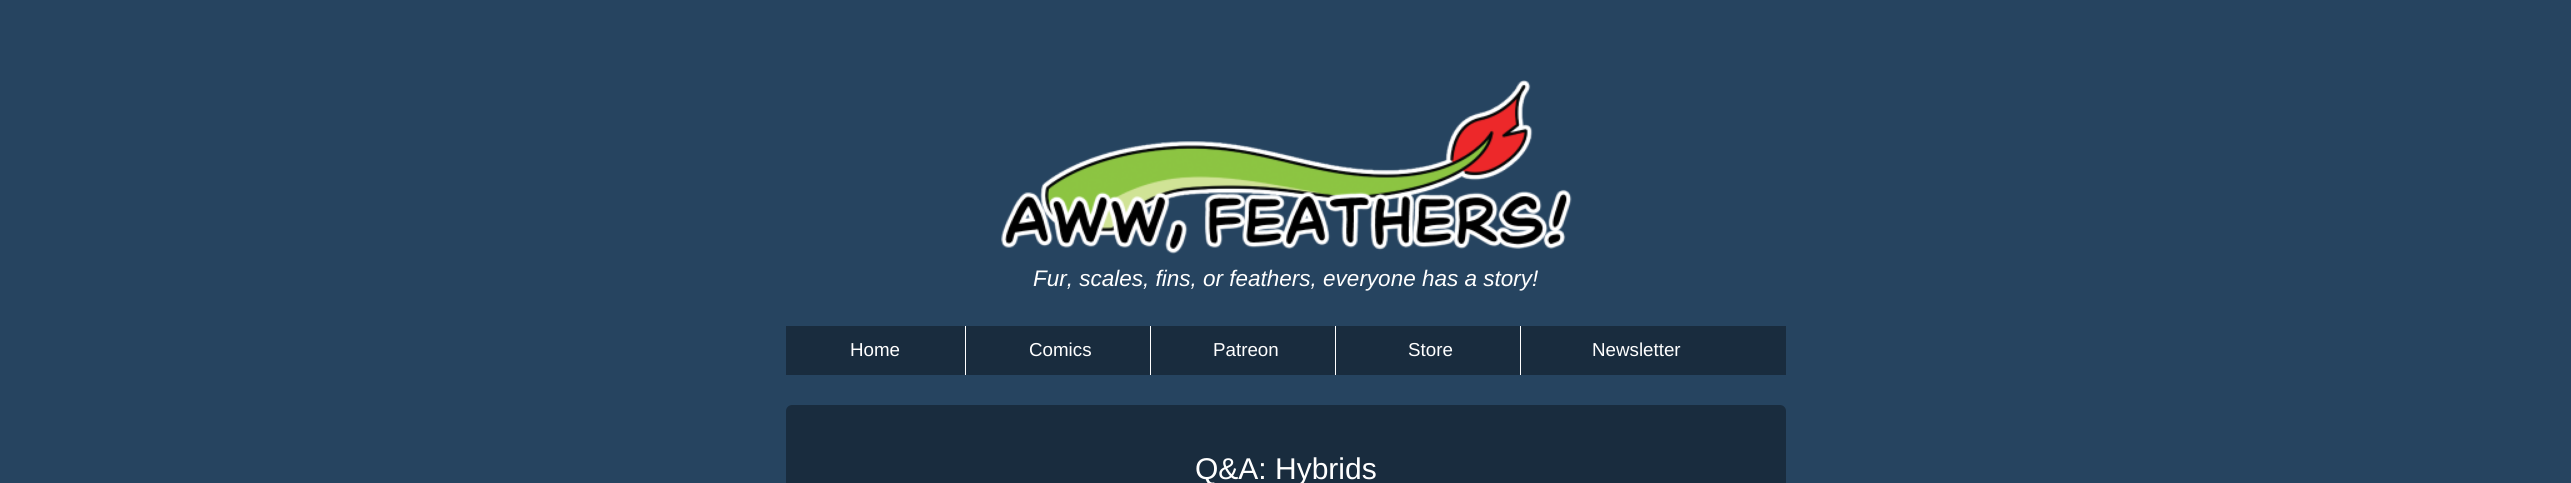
import math
import cairo


def use_color(cr, r, g, b):
  cr.set_source_rgb(r / 255, g / 255, b / 255)

def text(cr, x, y, s, family, size, color, bold=False, italic=False):
  cr.select_font_face(family, cairo.FONT_SLANT_ITALIC if italic else cairo.FONT_SLANT_NORMAL, cairo.FONT_WEIGHT_BOLD if bold else cairo.FONT_WEIGHT_NORMAL)
  cr.set_font_size(size)
  use_color(cr, *color)
  cr.move_to(x, y)
  cr.show_text(s)

def box(cr, x, y, w, h, *color):
  use_color(cr, *color)
  cr.rectangle(x, y, w, h)
  cr.fill()

def round_rect(cr, x, y, w, h, r):
  cr.new_sub_path()
  for i, (u, v) in enumerate([(x + w - r, y + h - r), (x + r, y + h - r), (x + r, y + r), (x + w - r, y + r)]):
    cr.arc(u, v, r, i * math.pi / 2, (i + 1) * math.pi / 2)
  cr.close_path()

def picture(cr, path, x, y, w, h):
  cr.save()
  cr.set_source_surface(cairo.ImageSurface.create_from_png(path), x, y)
  cr.rectangle(x, y, w, h)
  cr.fill()
  cr.restore()

def draw(cr):
  use_color(cr, 38, 68, 96)
  cr.paint()
  picture(cr, "img_01.png", 1001, 80, 571, 174)
  box(cr, 786, 326, 1000, 49, 25, 44, 62)
  box(cr, 965, 326, 1, 49, 255, 255, 255)
  box(cr, 1150, 326, 1, 49, 255, 255, 255)
  box(cr, 1335, 326, 1, 49, 255, 255, 255)
  box(cr, 1520, 326, 1, 49, 255, 255, 255)
  use_color(cr, 25, 44, 62)
  round_rect(cr, 786, 405, 1000, 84, 6)
  cr.fill()
  text(cr, 1033, 286, "Fur, scales, fins, or feathers, everyone has a story!", "Liberation Sans", 22.5, (255, 255, 255), italic=True)
  text(cr, 850, 356, "Home", "Liberation Sans", 18.75, (255, 255, 255))
  text(cr, 1029, 356, "Comics", "Liberation Sans", 18.75, (255, 255, 255))
  text(cr, 1213, 356, "Patreon", "Liberation Sans", 18.75, (255, 255, 255))
  text(cr, 1408, 356, "Store", "Liberation Sans", 18.75, (255, 255, 255))
  text(cr, 1592, 356, "Newsletter", "Liberation Sans", 18.75, (255, 255, 255))
  text(cr, 1195, 479, "Q&A: Hybrids", "Liberation Sans", 30, (255, 255, 255))


surface = cairo.ImageSurface(cairo.FORMAT_RGB24, 2571, 483)
cr = cairo.Context(surface)
options = cairo.FontOptions()
options.set_hint_metrics(cairo.HINT_METRICS_OFF)
options.set_hint_style(cairo.HINT_STYLE_NONE)
cr.set_font_options(options)
cr.set_miter_limit(4)
draw(cr)
surface.write_to_png("out.png")
